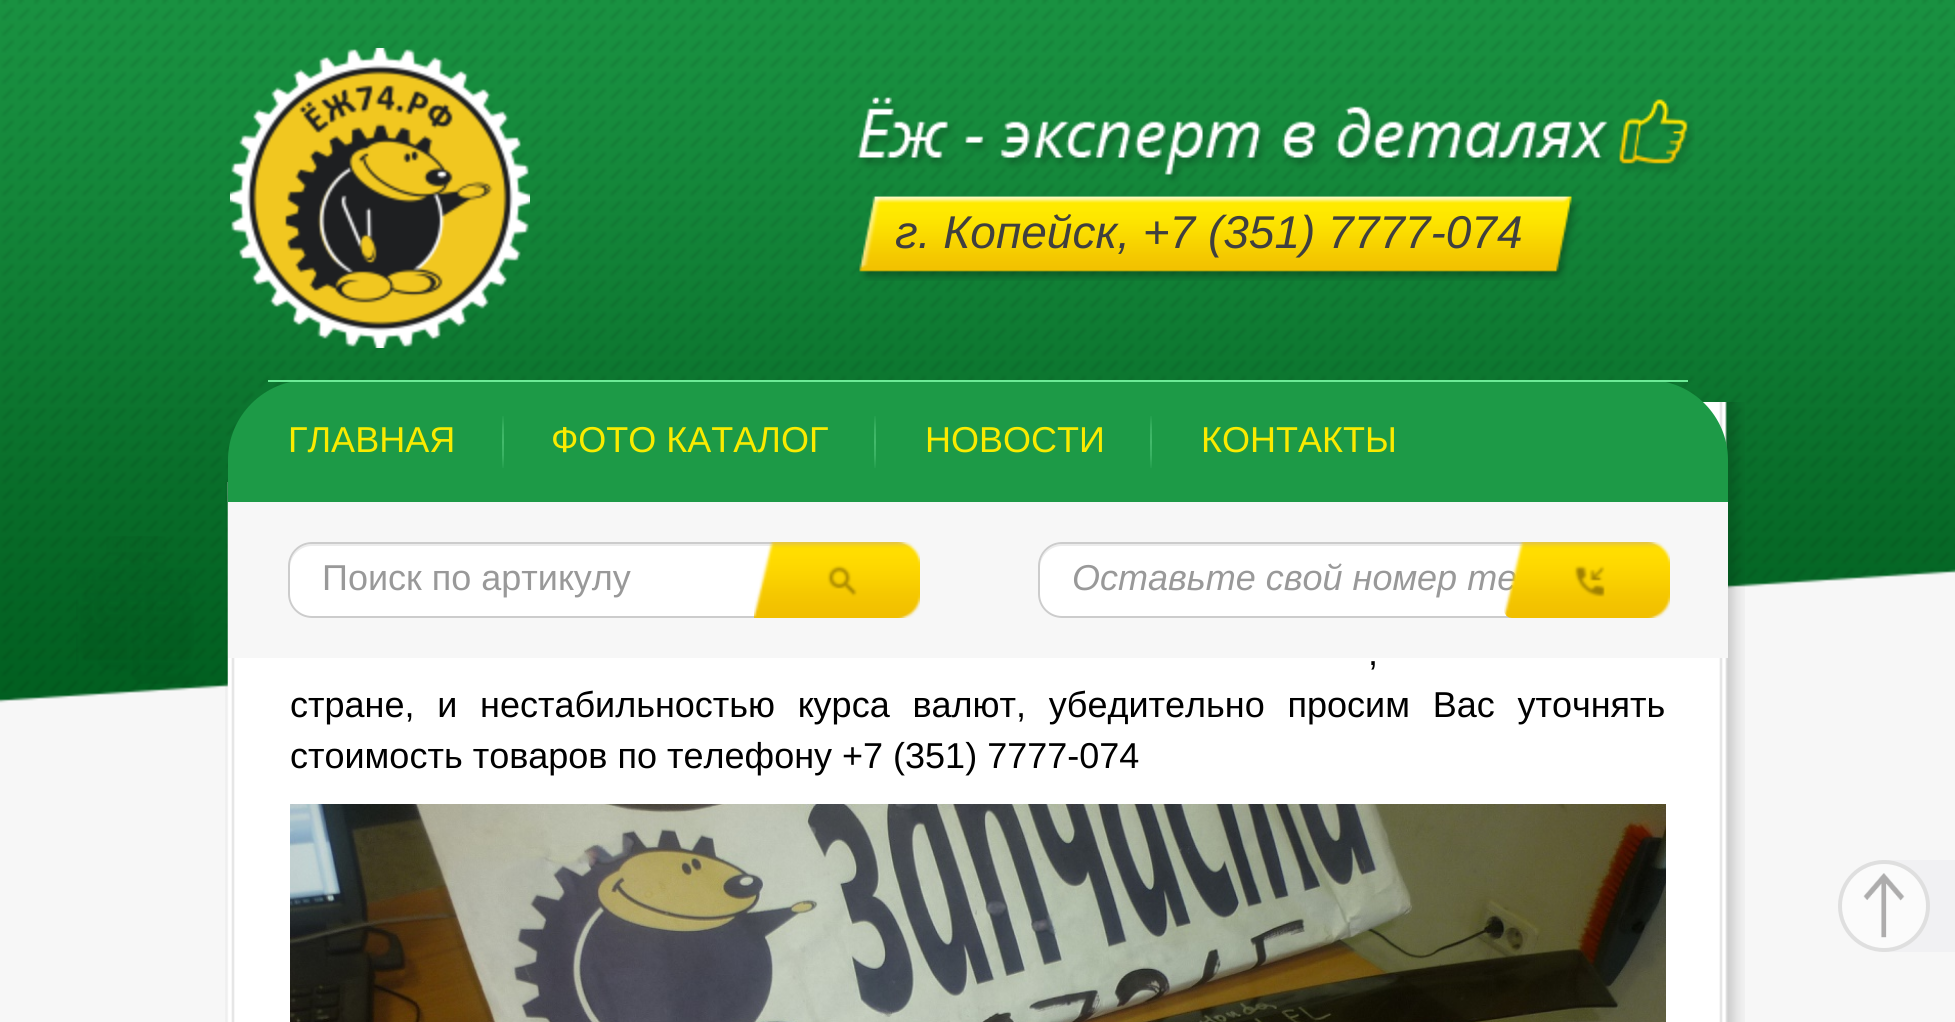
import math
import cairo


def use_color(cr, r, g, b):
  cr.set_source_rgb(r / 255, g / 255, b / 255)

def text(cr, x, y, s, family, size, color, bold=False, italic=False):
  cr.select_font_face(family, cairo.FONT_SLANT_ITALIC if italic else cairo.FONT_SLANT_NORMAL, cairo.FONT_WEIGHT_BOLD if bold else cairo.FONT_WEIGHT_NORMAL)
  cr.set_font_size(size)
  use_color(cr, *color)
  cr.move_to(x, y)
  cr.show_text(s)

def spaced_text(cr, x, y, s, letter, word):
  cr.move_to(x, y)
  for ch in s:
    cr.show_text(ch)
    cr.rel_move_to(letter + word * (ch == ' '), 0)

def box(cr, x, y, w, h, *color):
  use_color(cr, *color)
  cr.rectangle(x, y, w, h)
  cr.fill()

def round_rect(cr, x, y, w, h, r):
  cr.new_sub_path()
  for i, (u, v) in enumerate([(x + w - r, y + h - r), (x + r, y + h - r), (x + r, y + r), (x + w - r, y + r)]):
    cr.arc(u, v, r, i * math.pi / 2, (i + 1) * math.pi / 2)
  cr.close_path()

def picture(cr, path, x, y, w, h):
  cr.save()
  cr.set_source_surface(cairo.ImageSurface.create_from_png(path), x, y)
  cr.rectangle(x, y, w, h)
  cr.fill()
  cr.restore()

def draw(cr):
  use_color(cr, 247, 247, 247)
  cr.paint()
  picture(cr, "img_01.png", 0, 0, 1955, 703)
  picture(cr, "img_02.png", 230, 48, 300, 300)
  picture(cr, "img_03.png", 857, 97, 838, 184)
  box(cr, 1884, 860, 71, 92, 241, 241, 243)
  use_color(cr, 251, 251, 251)
  cr.arc(1884, 906, 44, 0, 2 * math.pi)
  cr.fill_preserve()
  use_color(cr, 223, 223, 223)
  cr.set_line_width(4)
  cr.stroke()
  picture(cr, "img_04.png", 1863, 873, 42, 65)
  box(cr, 228, 658, 1500, 364, 255, 255, 255)
  picture(cr, "img_09.png", 225, 482, 10, 540)
  picture(cr, "img_11.png", 1702, 402, 43, 620)
  use_color(cr, 29, 154, 71)
  cr.new_path()
  cr.move_to(308, 380)
  cr.line_to(1648, 380)
  cr.curve_to(1692, 380, 1728, 416, 1728, 460)
  cr.line_to(1728, 658)
  cr.line_to(228, 658)
  cr.line_to(228, 460)
  cr.curve_to(228, 416, 264, 380, 308, 380)
  cr.close_path()
  cr.fill()
  box(cr, 268, 380, 1420, 2, 109, 234, 151)
  picture(cr, "img_05.png", 502, 416, 2, 52)
  picture(cr, "img_05.png", 874, 416, 2, 52)
  picture(cr, "img_05.png", 1150, 416, 2, 52)
  box(cr, 228, 502, 1500, 156, 247, 247, 247)
  use_color(cr, 255, 255, 255)
  round_rect(cr, 288, 542, 630, 76, 24)
  cr.fill()
  use_color(cr, 236, 236, 236)
  cr.new_path()
  cr.move_to(312, 546)
  cr.line_to(894, 546)
  cr.curve_to(906, 546, 916, 556, 916, 568)
  cr.line_to(916, 566)
  cr.curve_to(916, 554, 906, 544, 894, 544)
  cr.line_to(312, 544)
  cr.curve_to(300, 544, 290, 554, 290, 566)
  cr.line_to(290, 568)
  cr.curve_to(290, 556, 300, 546, 312, 546)
  cr.close_path()
  cr.fill()
  round_rect(cr, 289, 543, 628, 74, 23)
  use_color(cr, 204, 204, 204)
  cr.set_line_width(2)
  cr.stroke()
  picture(cr, "img_06.png", 754, 542, 166, 76)
  use_color(cr, 255, 255, 255)
  round_rect(cr, 1038, 542, 630, 76, 24)
  cr.fill()
  use_color(cr, 236, 236, 236)
  cr.new_path()
  cr.move_to(1062, 546)
  cr.line_to(1644, 546)
  cr.curve_to(1656, 546, 1666, 556, 1666, 568)
  cr.line_to(1666, 566)
  cr.curve_to(1666, 554, 1656, 544, 1644, 544)
  cr.line_to(1062, 544)
  cr.curve_to(1050, 544, 1040, 554, 1040, 566)
  cr.line_to(1040, 568)
  cr.curve_to(1040, 556, 1050, 546, 1062, 546)
  cr.close_path()
  cr.fill()
  round_rect(cr, 1039, 543, 628, 74, 23)
  use_color(cr, 204, 204, 204)
  cr.stroke()
  picture(cr, "img_08.png", 76, 536, 120, 148)
  picture(cr, "img_10.png", 290, 804, 1376, 218)
  text(cr, 895, 248, "г. Копейск, +7 (351) 7777-074", "Liberation Sans", 46, (63, 63, 63), italic=True)
  text(cr, 288, 452, "ГЛАВНАЯ", "Liberation Sans", 36, (250, 235, 0))
  text(cr, 551, 452, "ФОТО КАТАЛОГ", "Liberation Sans", 36, (250, 235, 0))
  text(cr, 925, 452, "НОВОСТИ", "Liberation Sans", 36, (250, 235, 0))
  text(cr, 1201, 452, "КОНТАКТЫ", "Liberation Sans", 36, (250, 235, 0))
  text(cr, 322, 590, "Поиск по артикулу", "Liberation Sans", 36, (153, 153, 153))
  text(cr, 1072, 590, "Оставьте свой номер те", "Liberation Sans", 36, (153, 153, 153), italic=True)
  picture(cr, "img_07.png", 1504, 542, 166, 76)
  cr.select_font_face("Liberation Sans")
  use_color(cr, 0, 0, 0)
  spaced_text(cr, 1368, 665, ",", 0, 10)
  spaced_text(cr, 290, 717, "стране, и нестабильностью курса валют, убедительно просим Вас уточнять", 0, 12.75)
  text(cr, 290, 768, "стоимость товаров по телефону +7 (351) 7777-074", "Liberation Sans", 36, (0, 0, 0))


surface = cairo.ImageSurface(cairo.FORMAT_RGB24, 1955, 1022)
cr = cairo.Context(surface)
options = cairo.FontOptions()
options.set_hint_metrics(cairo.HINT_METRICS_OFF)
options.set_hint_style(cairo.HINT_STYLE_NONE)
cr.set_font_options(options)
cr.set_miter_limit(4)
draw(cr)
surface.write_to_png("out.png")
